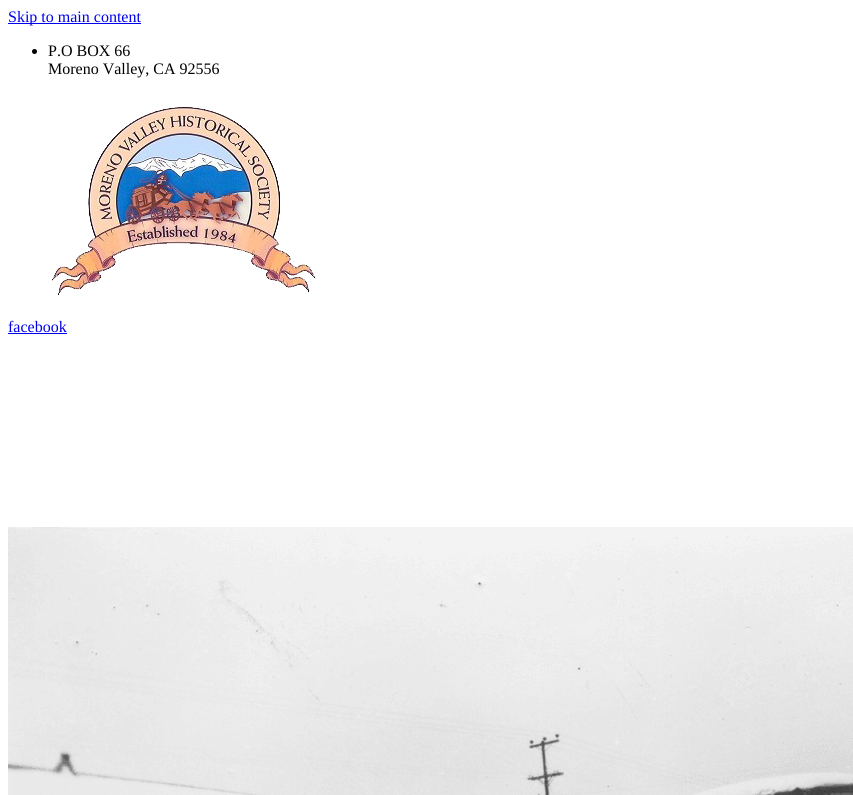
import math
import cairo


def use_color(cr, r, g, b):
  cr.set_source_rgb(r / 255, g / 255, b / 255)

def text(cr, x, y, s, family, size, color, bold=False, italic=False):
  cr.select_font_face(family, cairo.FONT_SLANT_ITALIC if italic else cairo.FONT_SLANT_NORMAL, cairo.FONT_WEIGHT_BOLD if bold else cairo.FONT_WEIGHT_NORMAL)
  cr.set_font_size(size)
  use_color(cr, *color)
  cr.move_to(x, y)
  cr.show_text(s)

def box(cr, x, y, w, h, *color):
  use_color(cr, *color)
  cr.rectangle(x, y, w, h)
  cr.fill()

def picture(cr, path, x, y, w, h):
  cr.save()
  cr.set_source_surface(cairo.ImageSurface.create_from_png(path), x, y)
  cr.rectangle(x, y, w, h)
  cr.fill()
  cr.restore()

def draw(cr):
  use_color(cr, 255, 255, 255)
  cr.paint()
  box(cr, 8, 23, 133, 1, 0, 0, 238)
  use_color(cr, 0, 0, 0)
  cr.arc(34.5, 51.5, 2.5, 0, 2 * math.pi)
  cr.fill()
  picture(cr, "img_01.png", 52, 107, 264, 188)
  box(cr, 8, 333, 59, 1, 0, 0, 238)
  picture(cr, "img_02.png", 8, 527, 845, 268)
  text(cr, 8, 22, "Skip to main content", "Liberation Serif", 16, (0, 0, 238))
  text(cr, 48, 56, "P.O BOX 66", "Liberation Serif", 16, (0, 0, 0))
  text(cr, 48, 74, "Moreno Valley, CA 92556", "Liberation Serif", 16, (0, 0, 0))
  text(cr, 8, 332, "facebook", "Liberation Serif", 16, (0, 0, 238))


surface = cairo.ImageSurface(cairo.FORMAT_RGB24, 853, 795)
cr = cairo.Context(surface)
options = cairo.FontOptions()
options.set_hint_metrics(cairo.HINT_METRICS_OFF)
options.set_hint_style(cairo.HINT_STYLE_NONE)
cr.set_font_options(options)
cr.set_miter_limit(4)
draw(cr)
surface.write_to_png("out.png")
